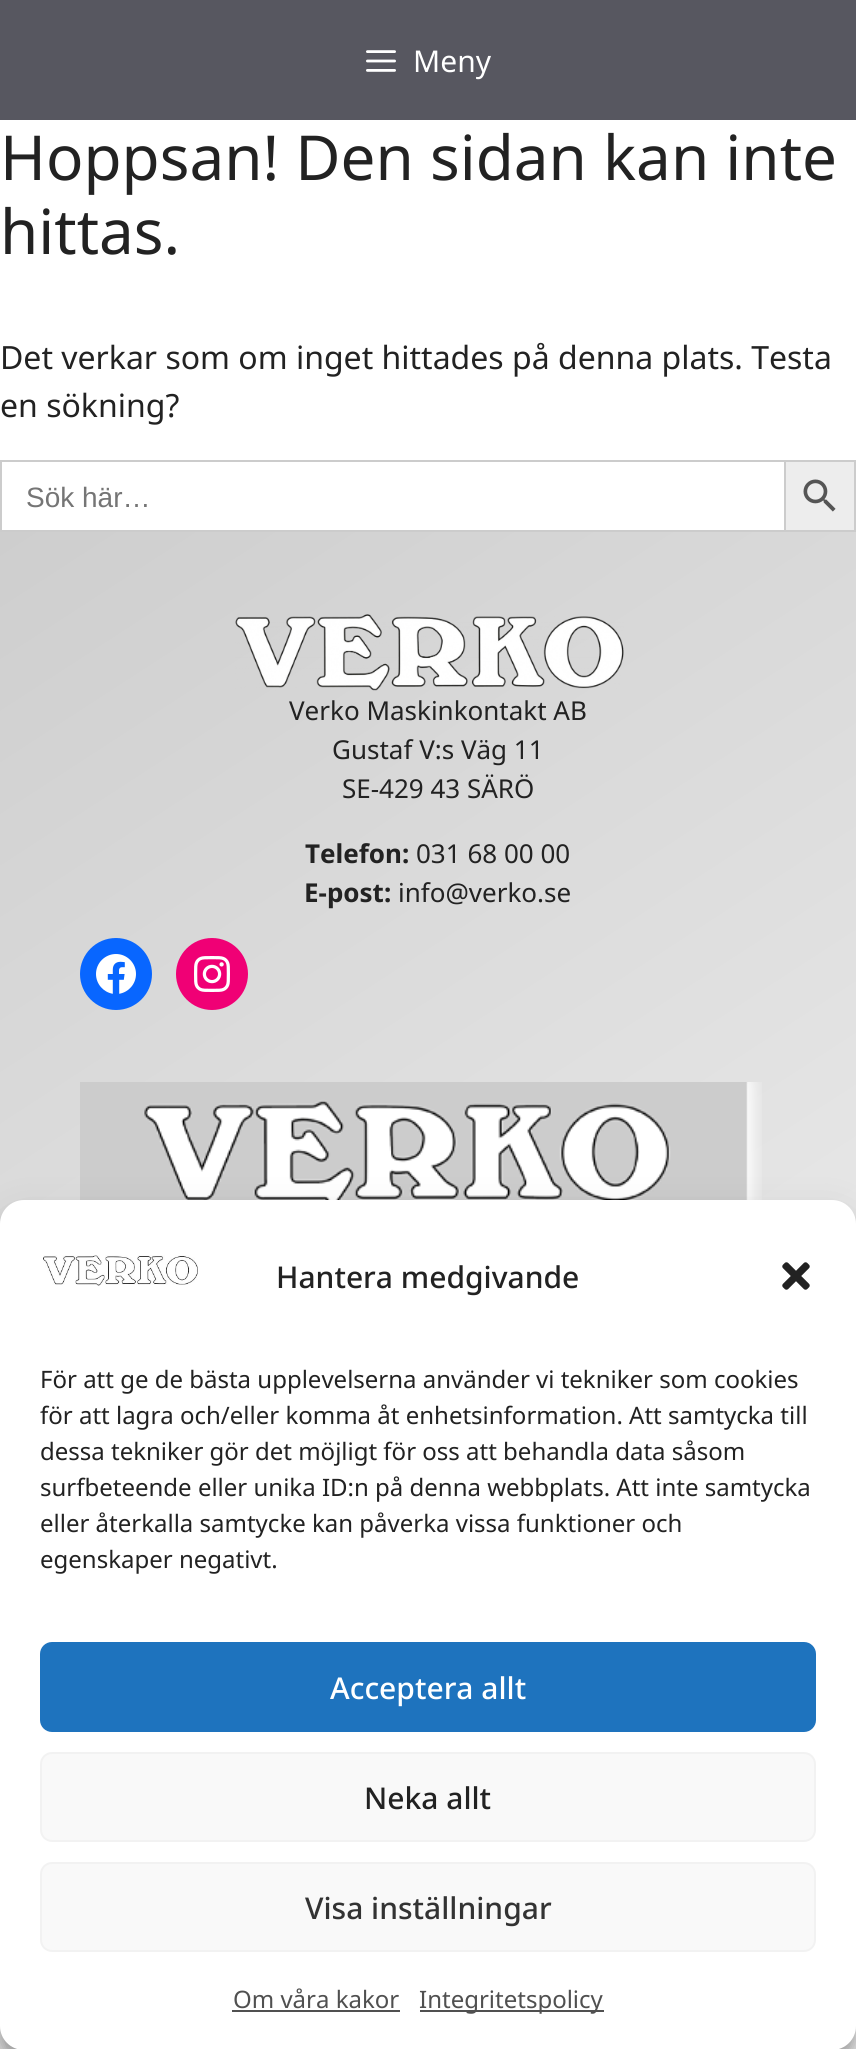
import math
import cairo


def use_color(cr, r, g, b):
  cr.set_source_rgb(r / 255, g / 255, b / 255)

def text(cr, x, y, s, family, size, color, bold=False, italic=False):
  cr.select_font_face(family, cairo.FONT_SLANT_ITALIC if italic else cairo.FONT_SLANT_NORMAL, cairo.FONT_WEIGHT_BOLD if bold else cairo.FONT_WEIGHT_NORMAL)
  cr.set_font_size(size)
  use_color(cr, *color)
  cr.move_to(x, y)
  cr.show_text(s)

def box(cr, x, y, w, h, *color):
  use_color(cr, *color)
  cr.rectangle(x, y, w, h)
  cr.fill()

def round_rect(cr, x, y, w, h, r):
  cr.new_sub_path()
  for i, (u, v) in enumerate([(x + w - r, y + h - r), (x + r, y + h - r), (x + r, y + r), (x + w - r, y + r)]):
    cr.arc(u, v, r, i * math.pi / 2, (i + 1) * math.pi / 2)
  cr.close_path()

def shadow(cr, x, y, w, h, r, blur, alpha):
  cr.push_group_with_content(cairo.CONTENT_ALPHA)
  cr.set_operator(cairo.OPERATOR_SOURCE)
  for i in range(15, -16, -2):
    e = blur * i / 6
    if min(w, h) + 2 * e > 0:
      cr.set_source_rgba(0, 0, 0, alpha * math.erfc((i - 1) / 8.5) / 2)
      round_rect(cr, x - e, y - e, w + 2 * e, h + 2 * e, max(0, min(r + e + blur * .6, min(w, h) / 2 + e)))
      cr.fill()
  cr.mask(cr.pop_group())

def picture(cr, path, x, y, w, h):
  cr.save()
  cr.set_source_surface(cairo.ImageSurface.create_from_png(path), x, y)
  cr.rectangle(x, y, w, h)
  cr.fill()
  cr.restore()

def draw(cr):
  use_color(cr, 87, 87, 96)
  cr.paint()
  picture(cr, "img_01.png", 366, 50, 30, 22)
  box(cr, 0, 120, 856, 410, 255, 255, 255)
  box(cr, 0, 460, 784, 2, 204, 204, 204)
  box(cr, 0, 530, 784, 2, 204, 204, 204)
  box(cr, 0, 460, 2, 72, 204, 204, 204)
  use_color(cr, 237, 237, 237)
  cr.rectangle(785, 461, 70, 70)
  cr.fill_preserve()
  use_color(cr, 204, 204, 204)
  cr.stroke()
  picture(cr, "img_02.png", 803, 479, 33, 33)
  gradient = cairo.LinearGradient(-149, 629, 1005, 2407)
  gradient.add_color_stop_rgba(0, 0.808, 0.808, 0.808, 1)
  gradient.add_color_stop_rgba(1, 1, 1, 1, 1)
  cr.set_source(gradient)
  cr.rectangle(0, 532, 856, 1517)
  cr.fill()
  picture(cr, "img_03.png", 235, 614, 389, 77)
  use_color(cr, 8, 102, 255)
  cr.arc(116, 974, 36, 0, 2 * math.pi)
  cr.fill()
  picture(cr, "img_04.png", 96, 954, 40, 40)
  use_color(cr, 240, 0, 117)
  cr.arc(212, 974, 36, 0, 2 * math.pi)
  cr.fill()
  picture(cr, "img_05.png", 194, 956, 36, 36)
  picture(cr, "img_06.png", 80, 1082, 682, 118)
  use_color(cr, 0, 0, 0)
  shadow(cr, 0, 1212, 856, 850, 24, 6, 0.23)
  shadow(cr, 0, 1220, 856, 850, 24, 20, 0.19)
  use_color(cr, 255, 255, 255)
  round_rect(cr, 0, 1200, 856, 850, 24)
  cr.fill()
  picture(cr, "img_07.png", 43, 1255, 155, 31)
  picture(cr, "img_08.png", 782, 1262, 28, 28)
  use_color(cr, 30, 115, 190)
  round_rect(cr, 41, 1643, 774, 88, 11)
  cr.fill_preserve()
  cr.stroke()
  use_color(cr, 249, 249, 249)
  round_rect(cr, 41, 1753, 774, 88, 11)
  cr.fill_preserve()
  use_color(cr, 242, 242, 242)
  cr.stroke()
  use_color(cr, 249, 249, 249)
  round_rect(cr, 41, 1863, 774, 88, 11)
  cr.fill_preserve()
  use_color(cr, 242, 242, 242)
  cr.stroke()
  box(cr, 232, 2010, 168, 2, 80, 80, 80)
  box(cr, 420, 2010, 184, 2, 80, 80, 80)
  text(cr, 413, 72, "Meny", "Noto Sans", 30, (255, 255, 255))
  text(cr, 0, 180, "Hoppsan! Den sidan kan inte", "Noto Sans", 62, (34, 34, 34))
  text(cr, 0, 254, "hittas.", "Noto Sans", 62, (34, 34, 34))
  text(cr, 0, 369, "Det verkar som om inget hittades på denna plats. Testa", "Noto Sans", 32, (34, 34, 34))
  text(cr, 0, 417, "en sökning?", "Noto Sans", 32, (34, 34, 34))
  text(cr, 26, 507, "Sök här…", "Liberation Sans", 28, (117, 117, 117))
  text(cr, 289, 720, "Verko Maskinkontakt AB", "Noto Sans", 26, (34, 34, 34))
  text(cr, 332, 759, "Gustaf V:s Väg 11", "Noto Sans", 26, (34, 34, 34))
  text(cr, 342, 798, "SE-429 43 SÄRÖ", "Noto Sans", 26, (34, 34, 34))
  text(cr, 305, 863, "Telefon:", "Noto Sans", 26, (34, 34, 34), bold=True)
  text(cr, 416, 863, "031 68 00 00", "Noto Sans", 26, (34, 34, 34))
  text(cr, 304, 902, "E-post:", "Noto Sans", 26, (34, 34, 34), bold=True)
  text(cr, 398, 902, "info@verko.se", "Noto Sans", 26, (34, 34, 34))
  text(cr, 276, 1288, "Hantera medgivande", "Noto Sans Medium", 30, (34, 34, 34))
  text(cr, 40, 1388, "För att ge de bästa upplevelserna använder vi tekniker som cookies", "Noto Sans", 24, (34, 34, 34))
  text(cr, 40, 1424, "för att lagra och/eller komma åt enhetsinformation. Att samtycka till", "Noto Sans", 24, (34, 34, 34))
  text(cr, 40, 1460, "dessa tekniker gör det möjligt för oss att behandla data såsom", "Noto Sans", 24, (34, 34, 34))
  text(cr, 40, 1496, "surfbeteende eller unika ID:n på denna webbplats. Att inte samtycka", "Noto Sans", 24, (34, 34, 34))
  text(cr, 40, 1532, "eller återkalla samtycke kan påverka vissa funktioner och", "Noto Sans", 24, (34, 34, 34))
  text(cr, 40, 1568, "egenskaper negativt.", "Noto Sans", 24, (34, 34, 34))
  text(cr, 330, 1699, "Acceptera allt", "Noto Sans Medium", 30, (255, 255, 255))
  text(cr, 364, 1809, "Neka allt", "Noto Sans Medium", 30, (34, 34, 34))
  text(cr, 305, 1919, "Visa inställningar", "Noto Sans Medium", 30, (51, 51, 51))
  text(cr, 233, 2008, "Om våra kakor", "Noto Sans", 24, (80, 80, 80))
  text(cr, 419, 2008, "Integritetspolicy", "Noto Sans", 24, (80, 80, 80))


surface = cairo.ImageSurface(cairo.FORMAT_RGB24, 856, 2049)
cr = cairo.Context(surface)
options = cairo.FontOptions()
options.set_hint_metrics(cairo.HINT_METRICS_OFF)
options.set_hint_style(cairo.HINT_STYLE_NONE)
cr.set_font_options(options)
cr.set_miter_limit(4)
draw(cr)
surface.write_to_png("out.png")
